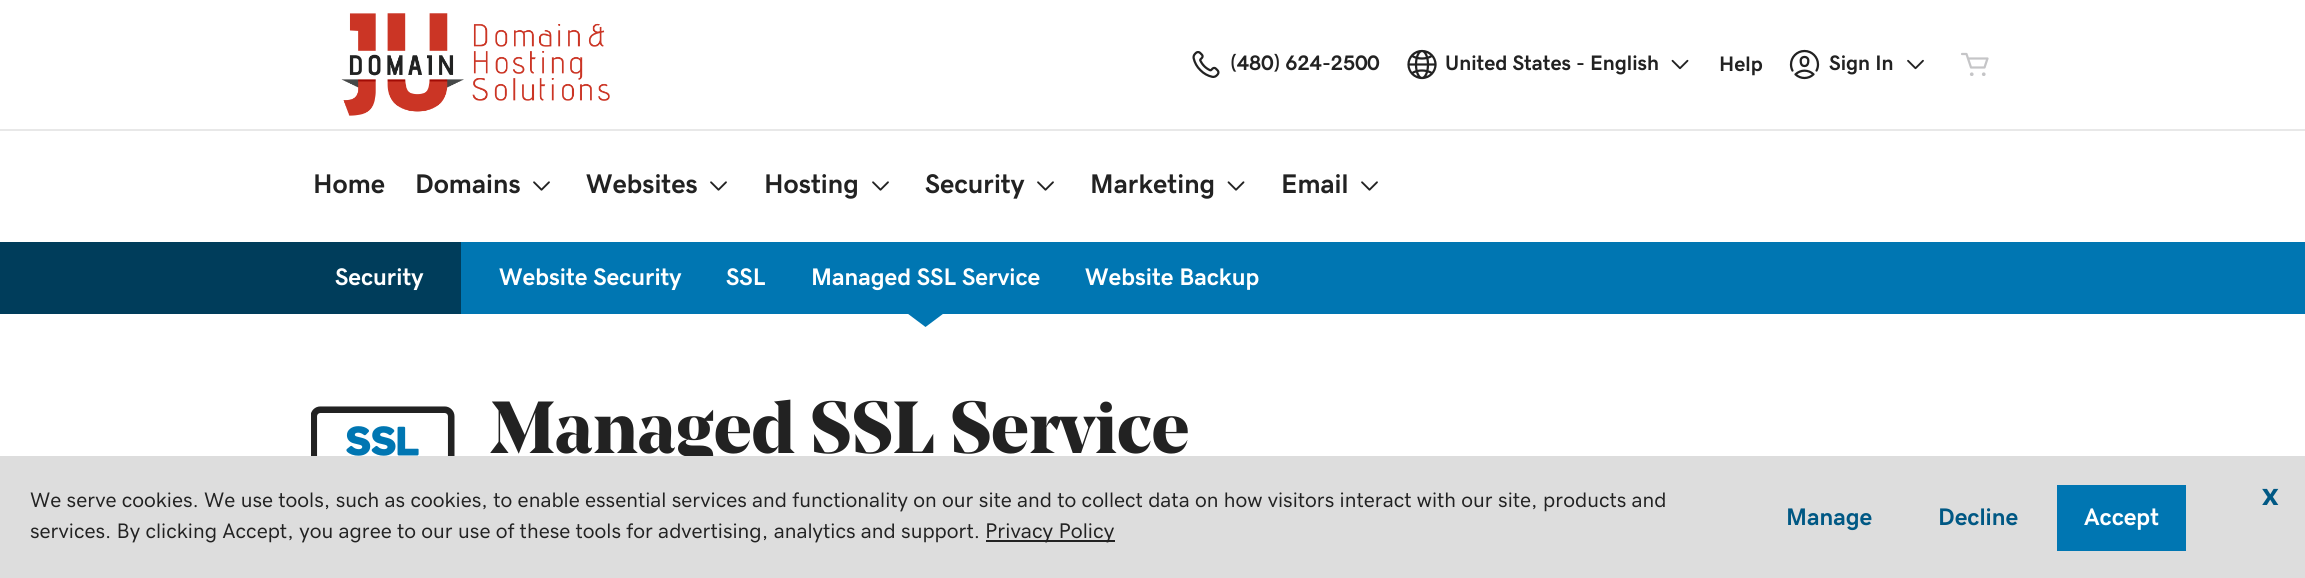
import math
import cairo


def use_color(cr, r, g, b):
  cr.set_source_rgb(r / 255, g / 255, b / 255)

def text(cr, x, y, s, family, size, color, bold=False, italic=False):
  cr.select_font_face(family, cairo.FONT_SLANT_ITALIC if italic else cairo.FONT_SLANT_NORMAL, cairo.FONT_WEIGHT_BOLD if bold else cairo.FONT_WEIGHT_NORMAL)
  cr.set_font_size(size)
  use_color(cr, *color)
  cr.move_to(x, y)
  cr.show_text(s)

def box(cr, x, y, w, h, *color):
  use_color(cr, *color)
  cr.rectangle(x, y, w, h)
  cr.fill()

def picture(cr, path, x, y, w, h):
  cr.save()
  cr.set_source_surface(cairo.ImageSurface.create_from_png(path), x, y)
  cr.rectangle(x, y, w, h)
  cr.fill()
  cr.restore()

def draw(cr):
  use_color(cr, 255, 255, 255)
  cr.paint()
  box(cr, 0, 129, 2305, 2, 232, 232, 232)
  picture(cr, "img_01.png", 341, 13, 269, 103)
  picture(cr, "img_02.png", 1192, 51, 28, 27)
  picture(cr, "img_03.png", 1407, 49, 30, 31)
  picture(cr, "img_04.png", 1671, 59, 18, 11)
  picture(cr, "img_05.png", 1789, 49, 31, 31)
  picture(cr, "img_06.png", 1907, 59, 17, 11)
  picture(cr, "img_07.png", 1961, 52, 28, 24)
  picture(cr, "img_08.png", 533, 181, 17, 10)
  picture(cr, "img_08.png", 710, 181, 17, 10)
  picture(cr, "img_08.png", 872, 181, 17, 10)
  picture(cr, "img_08.png", 1037, 181, 17, 10)
  picture(cr, "img_09.png", 1227, 181, 18, 10)
  picture(cr, "img_08.png", 1361, 181, 17, 10)
  box(cr, 461, 242, 1844, 72, 0, 118, 178)
  box(cr, 0, 242, 461, 72, 0, 61, 91)
  use_color(cr, 0, 118, 178)
  cr.new_path()
  cr.move_to(907.5, 313.5)
  cr.line_to(943.5, 313.5)
  cr.line_to(925.5, 327)
  cr.close_path()
  cr.fill()
  picture(cr, "img_10.png", 311, 406, 144, 50)
  text(cr, 1230, 70, "(480) 624-2500", "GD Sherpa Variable", 21, (34, 34, 34), bold=True)
  text(cr, 1445, 70, "United States - English", "GD Sherpa Variable", 21, (34, 34, 34), bold=True)
  text(cr, 1719, 71, "Help", "GD Sherpa Variable", 21, (34, 34, 34), bold=True)
  text(cr, 1829, 70, "Sign In", "GD Sherpa Variable", 21, (34, 34, 34), bold=True)
  text(cr, 313, 193, "Home", "GD Sherpa Variable", 27, (34, 34, 34), bold=True)
  text(cr, 415, 193, "Domains", "GD Sherpa Variable", 27, (34, 34, 34), bold=True)
  text(cr, 586, 193, "Websites", "GD Sherpa Variable", 27, (34, 34, 34), bold=True)
  text(cr, 764, 193, "Hosting", "GD Sherpa Variable", 27, (34, 34, 34), bold=True)
  text(cr, 925, 193, "Security", "GD Sherpa Variable", 27, (34, 34, 34), bold=True)
  text(cr, 1090, 193, "Marketing", "GD Sherpa Variable", 27, (34, 34, 34), bold=True)
  text(cr, 1281, 193, "Email", "GD Sherpa Variable", 27, (34, 34, 34), bold=True)
  text(cr, 335, 285, "Security", "GD Sherpa Variable", 24, (255, 255, 255), bold=True)
  text(cr, 499, 285, "Website Security", "GD Sherpa Variable", 24, (255, 255, 255), bold=True)
  text(cr, 726, 285, "SSL", "GD Sherpa Variable", 24, (255, 255, 255), bold=True)
  text(cr, 811, 285, "Managed SSL Service", "GD Sherpa Variable", 24, (255, 255, 255), bold=True)
  text(cr, 1085, 285, "Website Backup", "GD Sherpa Variable", 24, (255, 255, 255), bold=True)
  text(cr, 490, 453, "Managed SSL Service", "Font", 69.25, (34, 34, 34), bold=True)
  box(cr, 0, 456, 2305, 122, 221, 221, 221)
  text(cr, 30, 507, "We serve cookies. We use tools, such as cookies, to enable essential services and functionality on our site and to collect data on how visitors interact with our site, products and", "GD Sherpa Variable Medium", 21, (34, 34, 34))
  text(cr, 30, 538, "services. By clicking Accept, you agree to our use of these tools for advertising, analytics and support.", "GD Sherpa Variable Medium", 21, (34, 34, 34))
  box(cr, 986, 540, 129, 2, 34, 34, 34)
  text(cr, 985, 538, "Privacy Policy", "GD Sherpa Variable Medium", 21.25, (34, 34, 34))
  text(cr, 1786, 525, "Manage", "GD Sherpa Variable", 24, (0, 88, 132), bold=True)
  text(cr, 1938, 525, "Decline", "GD Sherpa Variable", 24, (0, 88, 132), bold=True)
  box(cr, 2057, 485, 129, 66, 0, 118, 178)
  text(cr, 2084, 525, "Accept", "GD Sherpa Variable", 24, (255, 255, 255), bold=True)
  text(cr, 2262, 505, "x", "GD Sherpa Variable", 33, (0, 88, 132), bold=True)


surface = cairo.ImageSurface(cairo.FORMAT_RGB24, 2305, 578)
cr = cairo.Context(surface)
options = cairo.FontOptions()
options.set_hint_metrics(cairo.HINT_METRICS_OFF)
options.set_hint_style(cairo.HINT_STYLE_NONE)
cr.set_font_options(options)
cr.set_miter_limit(4)
draw(cr)
surface.write_to_png("out.png")
